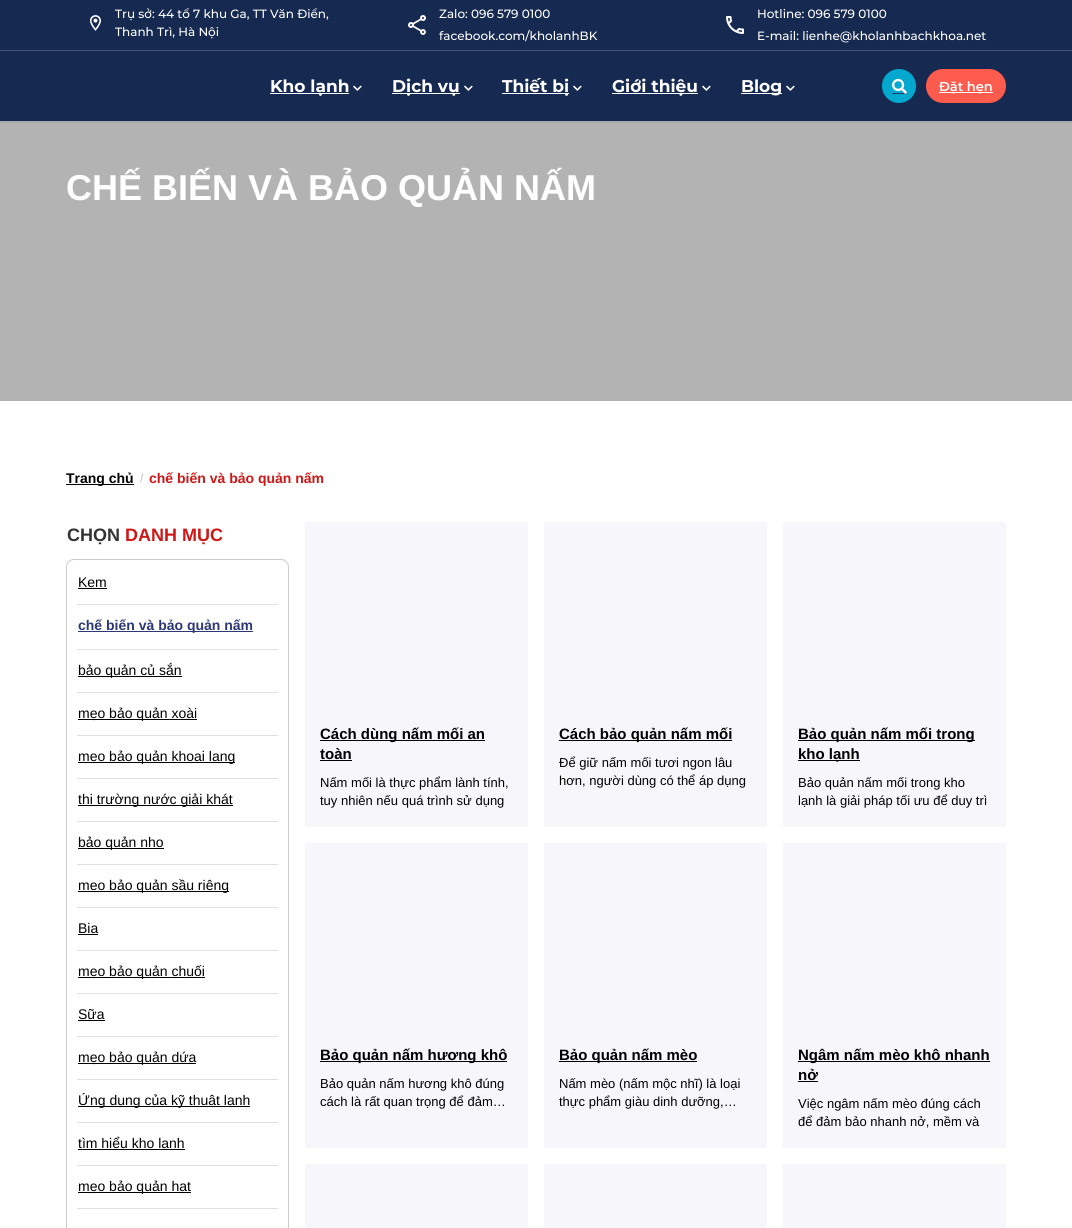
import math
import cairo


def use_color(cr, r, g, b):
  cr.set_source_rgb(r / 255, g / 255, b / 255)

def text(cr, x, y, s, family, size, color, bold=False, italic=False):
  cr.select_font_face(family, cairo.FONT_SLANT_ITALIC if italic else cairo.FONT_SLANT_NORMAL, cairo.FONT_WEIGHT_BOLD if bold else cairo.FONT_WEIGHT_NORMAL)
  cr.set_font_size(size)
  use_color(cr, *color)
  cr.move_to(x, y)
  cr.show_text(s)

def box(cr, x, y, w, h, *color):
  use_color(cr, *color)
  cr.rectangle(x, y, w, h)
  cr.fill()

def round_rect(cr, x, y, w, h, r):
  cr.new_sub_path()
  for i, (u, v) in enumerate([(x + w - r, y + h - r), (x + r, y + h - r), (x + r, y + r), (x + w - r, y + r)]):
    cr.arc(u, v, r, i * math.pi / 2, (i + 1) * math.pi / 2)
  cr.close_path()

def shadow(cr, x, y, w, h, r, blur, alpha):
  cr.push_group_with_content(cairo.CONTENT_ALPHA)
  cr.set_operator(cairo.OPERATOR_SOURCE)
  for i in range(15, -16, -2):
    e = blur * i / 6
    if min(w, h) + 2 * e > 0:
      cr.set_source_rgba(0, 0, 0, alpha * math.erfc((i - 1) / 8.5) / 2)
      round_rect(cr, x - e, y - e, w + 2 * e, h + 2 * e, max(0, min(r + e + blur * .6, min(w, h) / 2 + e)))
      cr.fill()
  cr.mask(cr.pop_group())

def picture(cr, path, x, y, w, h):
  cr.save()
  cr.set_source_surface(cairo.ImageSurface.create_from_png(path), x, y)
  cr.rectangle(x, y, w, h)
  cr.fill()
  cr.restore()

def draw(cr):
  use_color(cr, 255, 255, 255)
  cr.paint()
  box(cr, 0, 121, 1072, 280, 179, 179, 179)
  use_color(cr, 0, 0, 0)
  shadow(cr, 0, 1, 1072, 121, 0, 1, 0.08)
  box(cr, 0, 0, 1072, 121, 22, 41, 80)
  box(cr, 0, 50, 1072, 1, 69, 84, 115)
  picture(cr, "img_01.png", 90, 15, 11, 16)
  picture(cr, "img_02.png", 408, 15, 18, 20)
  picture(cr, "img_03.png", 726, 16, 18, 18)
  box(cr, 270, 93, 79, 1, 255, 255, 255)
  picture(cr, "img_04.png", 353, 85, 9, 6)
  box(cr, 392, 93, 68, 1, 255, 255, 255)
  picture(cr, "img_04.png", 464, 85, 9, 6)
  box(cr, 502, 93, 67, 1, 255, 255, 255)
  picture(cr, "img_04.png", 573, 85, 9, 6)
  box(cr, 612, 93, 86, 1, 255, 255, 255)
  picture(cr, "img_04.png", 702, 85, 9, 6)
  box(cr, 741, 93, 41, 1, 255, 255, 255)
  picture(cr, "img_04.png", 786, 85, 9, 6)
  use_color(cr, 2, 168, 205)
  cr.arc(899, 86, 17, 0, 2 * math.pi)
  cr.fill()
  box(cr, 892, 93, 15, 1, 45, 56, 119)
  picture(cr, "img_05.png", 892, 78, 15, 16)
  use_color(cr, 253, 91, 78)
  round_rect(cr, 926, 69, 80, 34, 17)
  cr.fill()
  box(cr, 939, 92, 54, 1, 255, 255, 255)
  box(cr, 66, 484, 68, 1, 0, 0, 0)
  round_rect(cr, 66.5, 559.5, 222, 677, 7.5)
  use_color(cr, 204, 204, 204)
  cr.set_line_width(1)
  cr.stroke()
  box(cr, 78, 588, 29, 1, 0, 0, 0)
  box(cr, 77, 604, 201, 1, 225, 225, 225)
  box(cr, 78, 631, 175, 1, 45, 56, 119)
  box(cr, 77, 649, 201, 1, 225, 225, 225)
  box(cr, 78, 676, 104, 1, 0, 0, 0)
  box(cr, 77, 692, 201, 1, 225, 225, 225)
  box(cr, 78, 719, 119, 1, 0, 0, 0)
  box(cr, 77, 735, 201, 1, 225, 225, 225)
  box(cr, 78, 762, 157, 1, 0, 0, 0)
  box(cr, 77, 778, 201, 1, 225, 225, 225)
  box(cr, 78, 805, 155, 1, 0, 0, 0)
  box(cr, 77, 821, 201, 1, 225, 225, 225)
  box(cr, 78, 848, 86, 1, 0, 0, 0)
  box(cr, 77, 864, 201, 1, 225, 225, 225)
  box(cr, 78, 891, 151, 1, 0, 0, 0)
  box(cr, 77, 907, 201, 1, 225, 225, 225)
  box(cr, 78, 934, 20, 1, 0, 0, 0)
  box(cr, 77, 950, 201, 1, 225, 225, 225)
  box(cr, 78, 977, 127, 1, 0, 0, 0)
  box(cr, 77, 993, 201, 1, 225, 225, 225)
  box(cr, 78, 1020, 27, 1, 0, 0, 0)
  box(cr, 77, 1036, 201, 1, 225, 225, 225)
  box(cr, 78, 1063, 118, 1, 0, 0, 0)
  box(cr, 77, 1079, 201, 1, 225, 225, 225)
  box(cr, 78, 1106, 172, 1, 0, 0, 0)
  box(cr, 77, 1122, 201, 1, 225, 225, 225)
  box(cr, 78, 1149, 107, 1, 0, 0, 0)
  box(cr, 77, 1165, 201, 1, 225, 225, 225)
  box(cr, 78, 1192, 113, 1, 0, 0, 0)
  box(cr, 77, 1208, 201, 1, 225, 225, 225)
  box(cr, 305, 522, 223, 305, 247, 246, 250)
  box(cr, 320, 740, 165, 1, 0, 0, 0)
  box(cr, 320, 760, 32, 1, 0, 0, 0)
  box(cr, 544, 522, 223, 305, 247, 246, 250)
  box(cr, 559, 740, 173, 1, 0, 0, 0)
  box(cr, 783, 522, 223, 305, 247, 246, 250)
  box(cr, 798, 740, 177, 1, 0, 0, 0)
  box(cr, 798, 760, 62, 1, 0, 0, 0)
  box(cr, 305, 843, 223, 305, 247, 246, 250)
  box(cr, 320, 1061, 187, 1, 0, 0, 0)
  box(cr, 544, 843, 223, 305, 247, 246, 250)
  box(cr, 559, 1061, 138, 1, 0, 0, 0)
  box(cr, 783, 843, 223, 305, 247, 246, 250)
  box(cr, 798, 1061, 192, 1, 0, 0, 0)
  box(cr, 798, 1081, 20, 1, 0, 0, 0)
  box(cr, 305, 1164, 223, 64, 247, 246, 250)
  box(cr, 544, 1164, 223, 64, 247, 246, 250)
  box(cr, 783, 1164, 223, 64, 247, 246, 250)
  text(cr, 115, 18, "Trụ sở: 44 tổ 7 khu Ga, TT Văn Điển,", "Montserrat Medium", 12, (255, 255, 255))
  text(cr, 115, 36, "Thanh Trì, Hà Nội", "Montserrat Medium", 12, (255, 255, 255))
  text(cr, 439, 18, "Zalo: 096 579 0100", "Montserrat Medium", 12, (255, 255, 255))
  text(cr, 439, 40, "facebook.com/kholanhBK", "Montserrat Medium", 12, (255, 255, 255))
  text(cr, 757, 18, "Hotline: 096 579 0100", "Montserrat Medium", 12, (255, 255, 255))
  text(cr, 757, 40, "E-mail: lienhe@kholanhbachkhoa.net", "Montserrat Medium", 12, (255, 255, 255))
  text(cr, 270, 92, "Kho lạnh", "Montserrat", 17, (255, 255, 255), bold=True)
  text(cr, 392, 92, "Dịch vụ", "Montserrat", 17, (255, 255, 255), bold=True)
  text(cr, 502, 92, "Thiết bị", "Montserrat", 17, (255, 255, 255), bold=True)
  text(cr, 612, 92, "Giới thiệu", "Montserrat", 17, (255, 255, 255), bold=True)
  text(cr, 741, 92, "Blog", "Montserrat", 17, (255, 255, 255), bold=True)
  text(cr, 939, 91, "Đặt hẹn", "Montserrat SemiBold", 13, (255, 255, 255))
  text(cr, 66, 200, "CHẾ BIẾN VÀ BẢO QUẢN NẤM", "Liberation Sans", 36, (255, 255, 255), bold=True)
  text(cr, 66, 483, "Trang chủ", "Liberation Sans", 14, (0, 0, 0), bold=True)
  text(cr, 140, 482, "/", "Liberation Sans", 12, (189, 189, 189))
  text(cr, 149, 483, "chế biến và bảo quản nấm", "Liberation Sans", 14, (207, 23, 23), bold=True)
  text(cr, 67, 541, "CHỌN", "Liberation Sans", 18, (51, 51, 51), bold=True)
  text(cr, 125, 541, "DANH MỤC", "Liberation Sans", 18, (207, 23, 23), bold=True)
  text(cr, 78, 587, "Kem", "Liberation Sans", 14, (0, 0, 0))
  text(cr, 78, 630, "chế biến và bảo quản nấm", "Liberation Sans", 14, (45, 56, 119), bold=True)
  text(cr, 78, 675, "bảo quản củ sắn", "Liberation Sans", 14, (0, 0, 0))
  text(cr, 78, 718, "mẹo bảo quản xoài", "Liberation Sans", 14, (0, 0, 0))
  text(cr, 78, 761, "mẹo bảo quản khoai lang", "Liberation Sans", 14, (0, 0, 0))
  text(cr, 78, 804, "thị trường nước giải khát", "Liberation Sans", 14, (0, 0, 0))
  text(cr, 78, 847, "bảo quản nho", "Liberation Sans", 14, (0, 0, 0))
  text(cr, 78, 890, "mẹo bảo quản sầu riêng", "Liberation Sans", 14, (0, 0, 0))
  text(cr, 78, 933, "Bia", "Liberation Sans", 14, (0, 0, 0))
  text(cr, 78, 976, "mẹo bảo quản chuối", "Liberation Sans", 14, (0, 0, 0))
  text(cr, 78, 1019, "Sữa", "Liberation Sans", 14, (0, 0, 0))
  text(cr, 78, 1062, "mẹo bảo quản dứa", "Liberation Sans", 14, (0, 0, 0))
  text(cr, 78, 1105, "Ứng dụng của kỹ thuật lạnh", "Liberation Sans", 14, (0, 0, 0))
  text(cr, 78, 1148, "tìm hiểu kho lạnh", "Liberation Sans", 14, (0, 0, 0))
  text(cr, 78, 1191, "mẹo bảo quản hạt", "Liberation Sans", 14, (0, 0, 0))
  text(cr, 320, 739, "Cách dùng nấm mối an", "Liberation Sans", 15, (0, 0, 0), bold=True)
  text(cr, 320, 759, "toàn", "Liberation Sans", 15, (0, 0, 0), bold=True)
  text(cr, 320, 787, "Nấm mối là thực phẩm lành tính,", "Liberation Sans", 13, (0, 0, 0))
  text(cr, 320, 805, "tuy nhiên nếu quá trình sử dụng", "Liberation Sans", 13, (0, 0, 0))
  text(cr, 559, 739, "Cách bảo quản nấm mối", "Liberation Sans", 15, (0, 0, 0), bold=True)
  text(cr, 559, 767, "Để giữ nấm mối tươi ngon lâu", "Liberation Sans", 13, (0, 0, 0))
  text(cr, 559, 785, "hơn, người dùng có thể áp dụng", "Liberation Sans", 13, (0, 0, 0))
  text(cr, 798, 739, "Bảo quản nấm mối trong", "Liberation Sans", 15, (0, 0, 0), bold=True)
  text(cr, 798, 759, "kho lạnh", "Liberation Sans", 15, (0, 0, 0), bold=True)
  text(cr, 798, 787, "Bảo quản nấm mối trong kho", "Liberation Sans", 13, (0, 0, 0))
  text(cr, 798, 805, "lạnh là giải pháp tối ưu để duy trì", "Liberation Sans", 13, (0, 0, 0))
  text(cr, 320, 1060, "Bảo quản nấm hương khô", "Liberation Sans", 15, (0, 0, 0), bold=True)
  text(cr, 320, 1088, "Bảo quản nấm hương khô đúng", "Liberation Sans", 13, (0, 0, 0))
  text(cr, 320, 1106, "cách là rất quan trọng để đảm…", "Liberation Sans", 13, (0, 0, 0))
  text(cr, 559, 1060, "Bảo quản nấm mèo", "Liberation Sans", 15, (0, 0, 0), bold=True)
  text(cr, 559, 1088, "Nấm mèo (nấm mộc nhĩ) là loại", "Liberation Sans", 13, (0, 0, 0))
  text(cr, 559, 1106, "thực phẩm giàu dinh dưỡng,…", "Liberation Sans", 13, (0, 0, 0))
  text(cr, 798, 1060, "Ngâm nấm mèo khô nhanh", "Liberation Sans", 15, (0, 0, 0), bold=True)
  text(cr, 798, 1080, "nở", "Liberation Sans", 15, (0, 0, 0), bold=True)
  text(cr, 798, 1108, "Việc ngâm nấm mèo đúng cách", "Liberation Sans", 13, (0, 0, 0))
  text(cr, 798, 1126, "để đảm bảo nhanh nở, mềm và", "Liberation Sans", 13, (0, 0, 0))


surface = cairo.ImageSurface(cairo.FORMAT_RGB24, 1072, 1228)
cr = cairo.Context(surface)
options = cairo.FontOptions()
options.set_hint_metrics(cairo.HINT_METRICS_OFF)
options.set_hint_style(cairo.HINT_STYLE_NONE)
cr.set_font_options(options)
cr.set_miter_limit(4)
draw(cr)
surface.write_to_png("out.png")
